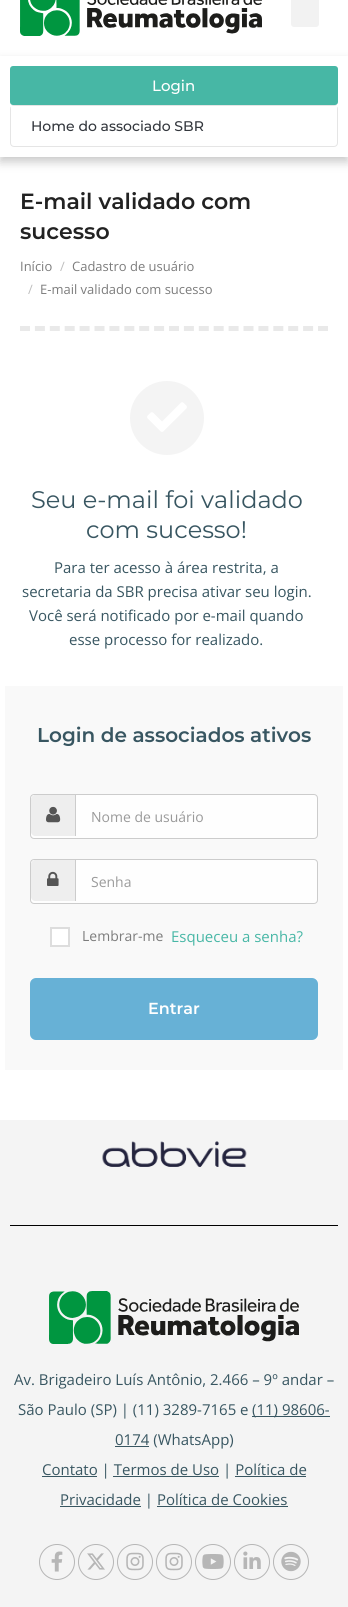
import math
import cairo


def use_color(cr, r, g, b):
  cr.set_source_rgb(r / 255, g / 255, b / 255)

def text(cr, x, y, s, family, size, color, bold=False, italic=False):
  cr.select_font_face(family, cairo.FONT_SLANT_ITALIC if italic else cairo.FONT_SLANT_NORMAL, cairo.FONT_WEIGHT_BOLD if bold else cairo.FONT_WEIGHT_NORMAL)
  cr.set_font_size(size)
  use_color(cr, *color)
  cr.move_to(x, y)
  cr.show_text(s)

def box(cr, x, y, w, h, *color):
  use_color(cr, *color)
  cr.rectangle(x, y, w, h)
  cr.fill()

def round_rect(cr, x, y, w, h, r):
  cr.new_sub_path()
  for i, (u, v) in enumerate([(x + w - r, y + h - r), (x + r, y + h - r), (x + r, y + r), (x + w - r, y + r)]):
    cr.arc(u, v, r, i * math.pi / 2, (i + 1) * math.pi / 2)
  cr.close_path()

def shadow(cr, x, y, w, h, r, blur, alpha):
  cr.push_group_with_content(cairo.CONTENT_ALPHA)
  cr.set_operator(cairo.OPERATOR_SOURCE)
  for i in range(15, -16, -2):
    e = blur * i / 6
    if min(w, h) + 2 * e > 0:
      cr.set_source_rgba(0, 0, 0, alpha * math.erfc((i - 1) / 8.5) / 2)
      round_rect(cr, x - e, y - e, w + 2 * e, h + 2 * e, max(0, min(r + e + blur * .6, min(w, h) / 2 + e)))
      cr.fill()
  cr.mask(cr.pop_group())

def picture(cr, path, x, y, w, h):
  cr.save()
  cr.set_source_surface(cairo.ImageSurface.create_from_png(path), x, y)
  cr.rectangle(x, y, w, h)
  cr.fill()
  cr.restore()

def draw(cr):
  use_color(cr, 255, 255, 255)
  cr.paint()
  picture(cr, "img_01.png", 20, 0, 242, 36)
  use_color(cr, 242, 242, 242)
  round_rect(cr, 291, -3, 28, 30, 3)
  cr.fill()
  use_color(cr, 0, 0, 0)
  shadow(cr, 0, 61, 348, 101, 0, 5, 0.21)
  box(cr, 0, 56, 348, 101, 255, 255, 255)
  use_color(cr, 71, 183, 165)
  round_rect(cr, 10, 66, 328, 39, 3)
  cr.fill()
  round_rect(cr, 10.5, 105.5, 327, 41, 3.5)
  use_color(cr, 229, 229, 229)
  cr.set_line_width(1)
  cr.stroke()
  use_color(cr, 255, 255, 255)
  cr.new_path()
  cr.move_to(11, 106)
  cr.line_to(337, 106)
  cr.line_to(337, 139)
  cr.curve_to(337, 143, 334, 146, 330, 146)
  cr.line_to(18, 146)
  cr.curve_to(14, 146, 11, 143, 11, 139)
  cr.close_path()
  cr.fill()
  cr.new_path()
  cr.move_to(20, 328.5)
  cr.line_to(328, 328.5)
  use_color(cr, 233, 233, 233)
  cr.set_line_width(5)
  cr.set_dash([10, 4.9])
  cr.stroke()
  use_color(cr, 244, 244, 244)
  cr.arc(167, 418, 37, 0, 2 * math.pi)
  cr.fill()
  picture(cr, "img_02.png", 147, 402, 40, 30)
  box(cr, 5, 686, 338, 384, 249, 249, 249)
  use_color(cr, 254, 254, 254)
  round_rect(cr, 30.5, 794.5, 287, 44, 3.5)
  cr.fill_preserve()
  use_color(cr, 204, 204, 204)
  cr.set_line_width(1)
  cr.set_dash([])
  cr.stroke()
  use_color(cr, 238, 238, 238)
  cr.new_path()
  cr.move_to(35, 795)
  cr.line_to(76, 795)
  cr.line_to(76, 836)
  cr.line_to(35, 836)
  cr.curve_to(33, 836, 31, 834, 31, 832)
  cr.line_to(31, 799)
  cr.curve_to(31, 797, 33, 795, 35, 795)
  cr.close_path()
  cr.fill()
  box(cr, 75, 795, 1, 41, 204, 204, 204)
  picture(cr, "img_03.png", 46, 806, 15, 17)
  use_color(cr, 254, 254, 254)
  round_rect(cr, 30.5, 859.5, 287, 44, 3.5)
  cr.fill_preserve()
  use_color(cr, 204, 204, 204)
  cr.stroke()
  use_color(cr, 238, 238, 238)
  cr.new_path()
  cr.move_to(35, 860)
  cr.line_to(76, 860)
  cr.line_to(76, 901)
  cr.line_to(35, 901)
  cr.curve_to(33, 901, 31, 899, 31, 897)
  cr.line_to(31, 864)
  cr.curve_to(31, 862, 33, 860, 35, 860)
  cr.close_path()
  cr.fill()
  box(cr, 75, 860, 1, 41, 204, 204, 204)
  picture(cr, "img_04.png", 47, 871, 12, 15)
  use_color(cr, 255, 255, 255)
  cr.rectangle(51, 928, 18, 18)
  cr.fill_preserve()
  use_color(cr, 221, 221, 221)
  cr.set_line_width(2)
  cr.stroke()
  use_color(cr, 254, 254, 254)
  round_rect(cr, 30, 978, 288, 62, 4)
  cr.fill()
  use_color(cr, 103, 177, 214)
  round_rect(cr, 30, 978, 288, 62, 6)
  cr.fill()
  box(cr, 0, 1120, 348, 487, 244, 244, 244)
  picture(cr, "img_05.png", 102, 1141, 145, 27)
  box(cr, 10, 1225, 328, 1, 0, 0, 0)
  picture(cr, "img_06.png", 49, 1291, 250, 53)
  box(cr, 252, 1416, 78, 1, 56, 86, 97)
  box(cr, 115, 1446, 34, 1, 56, 86, 97)
  box(cr, 42, 1476, 55, 1, 56, 86, 97)
  box(cr, 113, 1476, 106, 1, 56, 86, 97)
  box(cr, 235, 1476, 71, 1, 56, 86, 97)
  box(cr, 60, 1506, 81, 1, 56, 86, 97)
  box(cr, 157, 1506, 131, 1, 56, 86, 97)
  cr.arc(57, 1562, 17.5, 0, 2 * math.pi)
  use_color(cr, 182, 182, 182)
  cr.set_line_width(1)
  cr.stroke()
  picture(cr, "img_07.png", 51, 1551, 12, 21)
  cr.arc(96, 1562, 17.5, 0, 2 * math.pi)
  cr.stroke()
  picture(cr, "img_08.png", 87, 1553, 18, 17)
  cr.arc(135, 1562, 17.5, 0, 2 * math.pi)
  cr.stroke()
  picture(cr, "img_09.png", 126, 1552, 18, 19)
  cr.arc(174, 1562, 17.5, 0, 2 * math.pi)
  cr.stroke()
  picture(cr, "img_09.png", 165, 1552, 18, 19)
  cr.arc(213, 1562, 17.5, 0, 2 * math.pi)
  cr.stroke()
  picture(cr, "img_10.png", 202, 1554, 22, 15)
  cr.arc(252, 1562, 17.5, 0, 2 * math.pi)
  cr.stroke()
  picture(cr, "img_11.png", 243, 1551, 18, 18)
  cr.arc(291, 1562, 17.5, 0, 2 * math.pi)
  cr.stroke()
  picture(cr, "img_12.png", 281, 1551, 20, 21)
  text(cr, 152, 91, "Login", "Montserrat Medium", 15, (255, 255, 255))
  text(cr, 31, 131, "Home do associado SBR", "Montserrat Medium", 14, (51, 55, 61))
  text(cr, 20, 209, "E-mail validado com", "Montserrat SemiBold", 22, (34, 34, 34))
  text(cr, 20, 239, "sucesso", "Montserrat SemiBold", 22, (34, 34, 34))
  text(cr, 20, 271, "Início", "Open Sans", 13, (124, 124, 124))
  text(cr, 60, 271, "/", "Open Sans", 13, (190, 190, 190))
  text(cr, 72, 271, "Cadastro de usuário", "Open Sans", 13, (124, 124, 124))
  text(cr, 28, 294, "/", "Open Sans", 13, (190, 190, 190))
  text(cr, 40, 294, "E-mail validado com sucesso", "Open Sans", 13, (124, 124, 124))
  text(cr, 31, 508, "Seu e-mail foi validado", "Montserrat", 24, (56, 86, 97))
  text(cr, 86, 538, "com sucesso!", "Montserrat", 24, (56, 86, 97))
  text(cr, 54, 573, "Para ter acesso à área restrita, a", "Open Sans", 15, (56, 86, 97))
  text(cr, 22, 597, "secretaria da SBR precisa ativar seu login.", "Open Sans", 15, (56, 86, 97))
  text(cr, 29, 621, "Você será notificado por e-mail quando", "Open Sans", 15, (56, 86, 97))
  text(cr, 69, 645, "esse processo for realizado.", "Open Sans", 15, (56, 86, 97))
  text(cr, 37, 742, "Login de associados ativos", "Montserrat SemiBold", 20, (56, 86, 97))
  text(cr, 91, 822, "Nome de usuário", "Open Sans", 14, (154, 154, 154))
  text(cr, 91, 887, "Senha", "Open Sans", 14, (154, 154, 154))
  text(cr, 82, 941, "Lembrar-me", "Open Sans", 14, (124, 124, 124))
  text(cr, 171, 942, "Esqueceu a senha?", "Open Sans", 15, (72, 183, 166))
  text(cr, 148, 1014, "Entrar", "Montserrat SemiBold", 16, (255, 255, 255))
  text(cr, 14, 1385, "Av. Brigadeiro Luís Antônio, 2.466 – 9º andar –", "Open Sans", 15, (56, 86, 97))
  text(cr, 18, 1415, "São Paulo (SP) | (11) 3289-7165 e", "Open Sans", 15, (56, 86, 97))
  text(cr, 252, 1415, "(11) 98606-", "Open Sans", 15, (56, 86, 97))
  text(cr, 115, 1445, "0174 (WhatsApp)", "Open Sans", 15, (56, 86, 97))
  text(cr, 42, 1475, "Contato | Termos de Uso | Política de", "Open Sans", 15, (56, 86, 97))
  text(cr, 60, 1505, "Privacidade | Política de Cookies", "Open Sans", 15, (56, 86, 97))


surface = cairo.ImageSurface(cairo.FORMAT_RGB24, 348, 1607)
cr = cairo.Context(surface)
options = cairo.FontOptions()
options.set_hint_metrics(cairo.HINT_METRICS_OFF)
options.set_hint_style(cairo.HINT_STYLE_NONE)
cr.set_font_options(options)
cr.set_miter_limit(4)
draw(cr)
surface.write_to_png("out.png")
